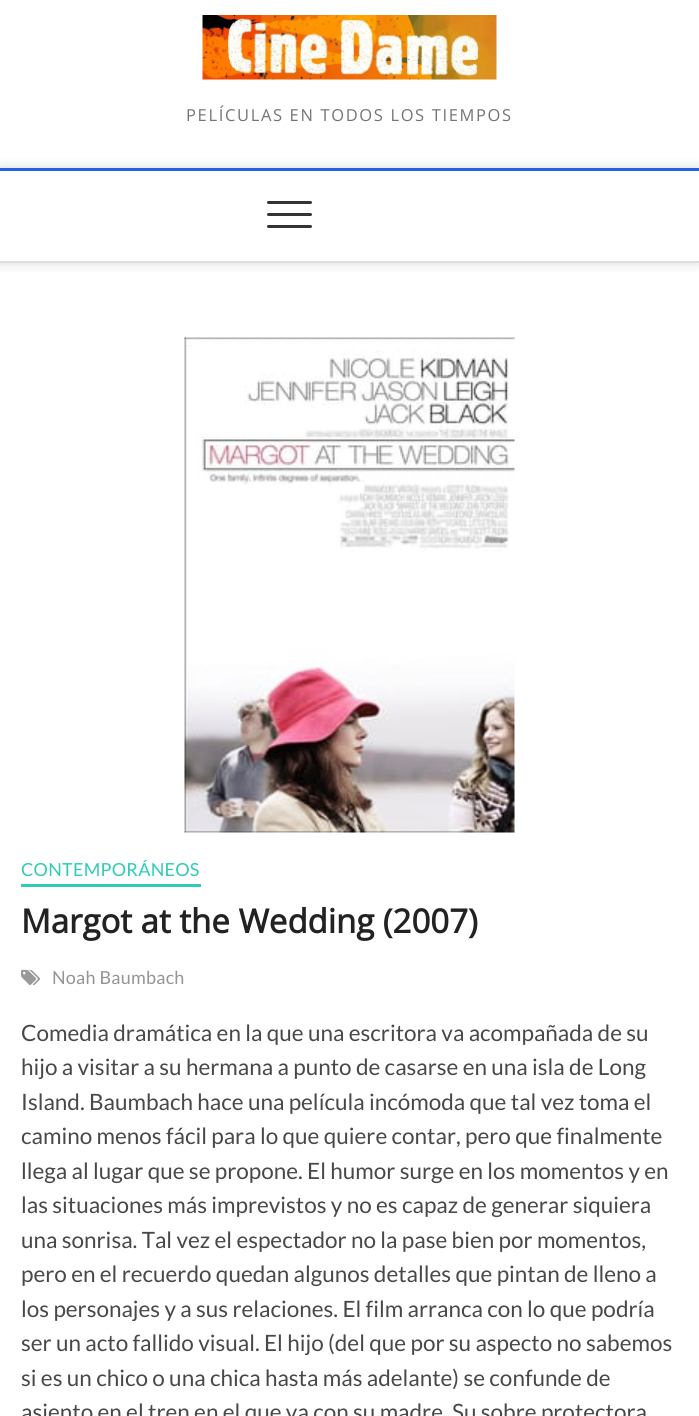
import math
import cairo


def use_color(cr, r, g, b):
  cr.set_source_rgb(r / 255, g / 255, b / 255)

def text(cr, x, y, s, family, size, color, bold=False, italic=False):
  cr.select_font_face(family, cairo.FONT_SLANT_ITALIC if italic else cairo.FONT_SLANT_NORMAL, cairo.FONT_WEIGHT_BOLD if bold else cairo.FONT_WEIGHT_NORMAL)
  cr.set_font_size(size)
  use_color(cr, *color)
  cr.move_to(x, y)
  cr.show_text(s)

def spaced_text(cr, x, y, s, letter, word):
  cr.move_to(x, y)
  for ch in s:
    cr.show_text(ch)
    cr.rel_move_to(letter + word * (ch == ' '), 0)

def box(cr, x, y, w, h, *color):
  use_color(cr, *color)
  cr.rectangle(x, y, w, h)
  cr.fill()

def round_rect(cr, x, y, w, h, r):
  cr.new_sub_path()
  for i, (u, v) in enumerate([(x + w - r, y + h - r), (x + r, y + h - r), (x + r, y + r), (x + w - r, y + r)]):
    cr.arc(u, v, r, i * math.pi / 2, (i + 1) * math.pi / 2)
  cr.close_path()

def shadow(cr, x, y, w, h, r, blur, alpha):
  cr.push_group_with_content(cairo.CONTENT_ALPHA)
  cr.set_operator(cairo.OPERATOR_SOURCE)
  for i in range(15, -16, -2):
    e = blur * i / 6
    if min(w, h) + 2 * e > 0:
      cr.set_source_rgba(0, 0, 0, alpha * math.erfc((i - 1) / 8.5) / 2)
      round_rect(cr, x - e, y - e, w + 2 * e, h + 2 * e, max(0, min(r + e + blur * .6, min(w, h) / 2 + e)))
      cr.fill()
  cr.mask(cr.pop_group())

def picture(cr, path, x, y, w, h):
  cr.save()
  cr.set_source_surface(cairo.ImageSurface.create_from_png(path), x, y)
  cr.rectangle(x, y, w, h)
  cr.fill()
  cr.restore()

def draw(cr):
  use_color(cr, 255, 255, 255)
  cr.paint()
  picture(cr, "img_01.png", 202, 15, 295, 65)
  use_color(cr, 0, 0, 0)
  shadow(cr, 0, 168, 699, 95, 0, 6, 0.15)
  box(cr, 0, 171, 699, 90, 255, 255, 255)
  box(cr, 0, 168, 699, 3, 37, 95, 232)
  box(cr, 0, 261, 699, 2, 221, 221, 221)
  use_color(cr, 51, 51, 51)
  round_rect(cr, 267, 213, 45, 3, 1.5)
  cr.fill()
  round_rect(cr, 267, 201, 45, 3, 1.5)
  cr.fill()
  round_rect(cr, 267, 225, 45, 3, 1.5)
  cr.fill()
  picture(cr, "img_02.png", 184, 337, 331, 496)
  box(cr, 21, 884, 180, 3, 46, 204, 183)
  picture(cr, "img_03.png", 21, 969, 19, 16)
  cr.select_font_face("Open Sans")
  cr.set_font_size(16.5)
  use_color(cr, 116, 116, 116)
  spaced_text(cr, 186, 121, "PELÍCULAS EN TODOS LOS TIEMPOS", 1.65, 0)
  cr.select_font_face("Lato")
  cr.set_font_size(18)
  use_color(cr, 46, 204, 183)
  spaced_text(cr, 21, 876, "CONTEMPORÁNEOS", 0.25, 0)
  text(cr, 21, 933, "Margot at the Wedding (2007)", "Open Sans", 33, (34, 34, 34), bold=True)
  cr.select_font_face("Lato")
  cr.set_font_size(18)
  use_color(cr, 148, 148, 148)
  spaced_text(cr, 52, 984, "Noah Baumbach", 0.25, 0)
  text(cr, 21, 1041, "Comedia dramática en la que una escritora va acompañada de su", "Lato", 22.5, (72, 72, 72))
  text(cr, 21, 1075, "hijo a visitar a su hermana a punto de casarse en una isla de Long", "Lato", 22.5, (72, 72, 72))
  text(cr, 21, 1110, "Island. Baumbach hace una película incómoda que tal vez toma el", "Lato", 22.5, (72, 72, 72))
  text(cr, 21, 1144, "camino menos fácil para lo que quiere contar, pero que finalmente", "Lato", 22.5, (72, 72, 72))
  text(cr, 21, 1179, "llega al lugar que se propone. El humor surge en los momentos y en", "Lato", 22.5, (72, 72, 72))
  text(cr, 21, 1213, "las situaciones más imprevistos y no es capaz de generar siquiera", "Lato", 22.5, (72, 72, 72))
  text(cr, 21, 1248, "una sonrisa. Tal vez el espectador no la pase bien por momentos,", "Lato", 22.5, (72, 72, 72))
  text(cr, 21, 1282, "pero en el recuerdo quedan algunos detalles que pintan de lleno a", "Lato", 22.5, (72, 72, 72))
  text(cr, 21, 1317, "los personajes y a sus relaciones. El film arranca con lo que podría", "Lato", 22.5, (72, 72, 72))
  text(cr, 21, 1351, "ser un acto fallido visual. El hijo (del que por su aspecto no sabemos", "Lato", 22.5, (72, 72, 72))
  text(cr, 21, 1386, "si es un chico o una chica hasta más adelante) se confunde de", "Lato", 22.5, (72, 72, 72))
  text(cr, 21, 1420, "asiento en el tren en el que va con su madre. Su sobre protectora", "Lato", 22.5, (72, 72, 72))


surface = cairo.ImageSurface(cairo.FORMAT_RGB24, 699, 1416)
cr = cairo.Context(surface)
options = cairo.FontOptions()
options.set_hint_metrics(cairo.HINT_METRICS_OFF)
options.set_hint_style(cairo.HINT_STYLE_NONE)
cr.set_font_options(options)
cr.set_miter_limit(4)
draw(cr)
surface.write_to_png("out.png")
